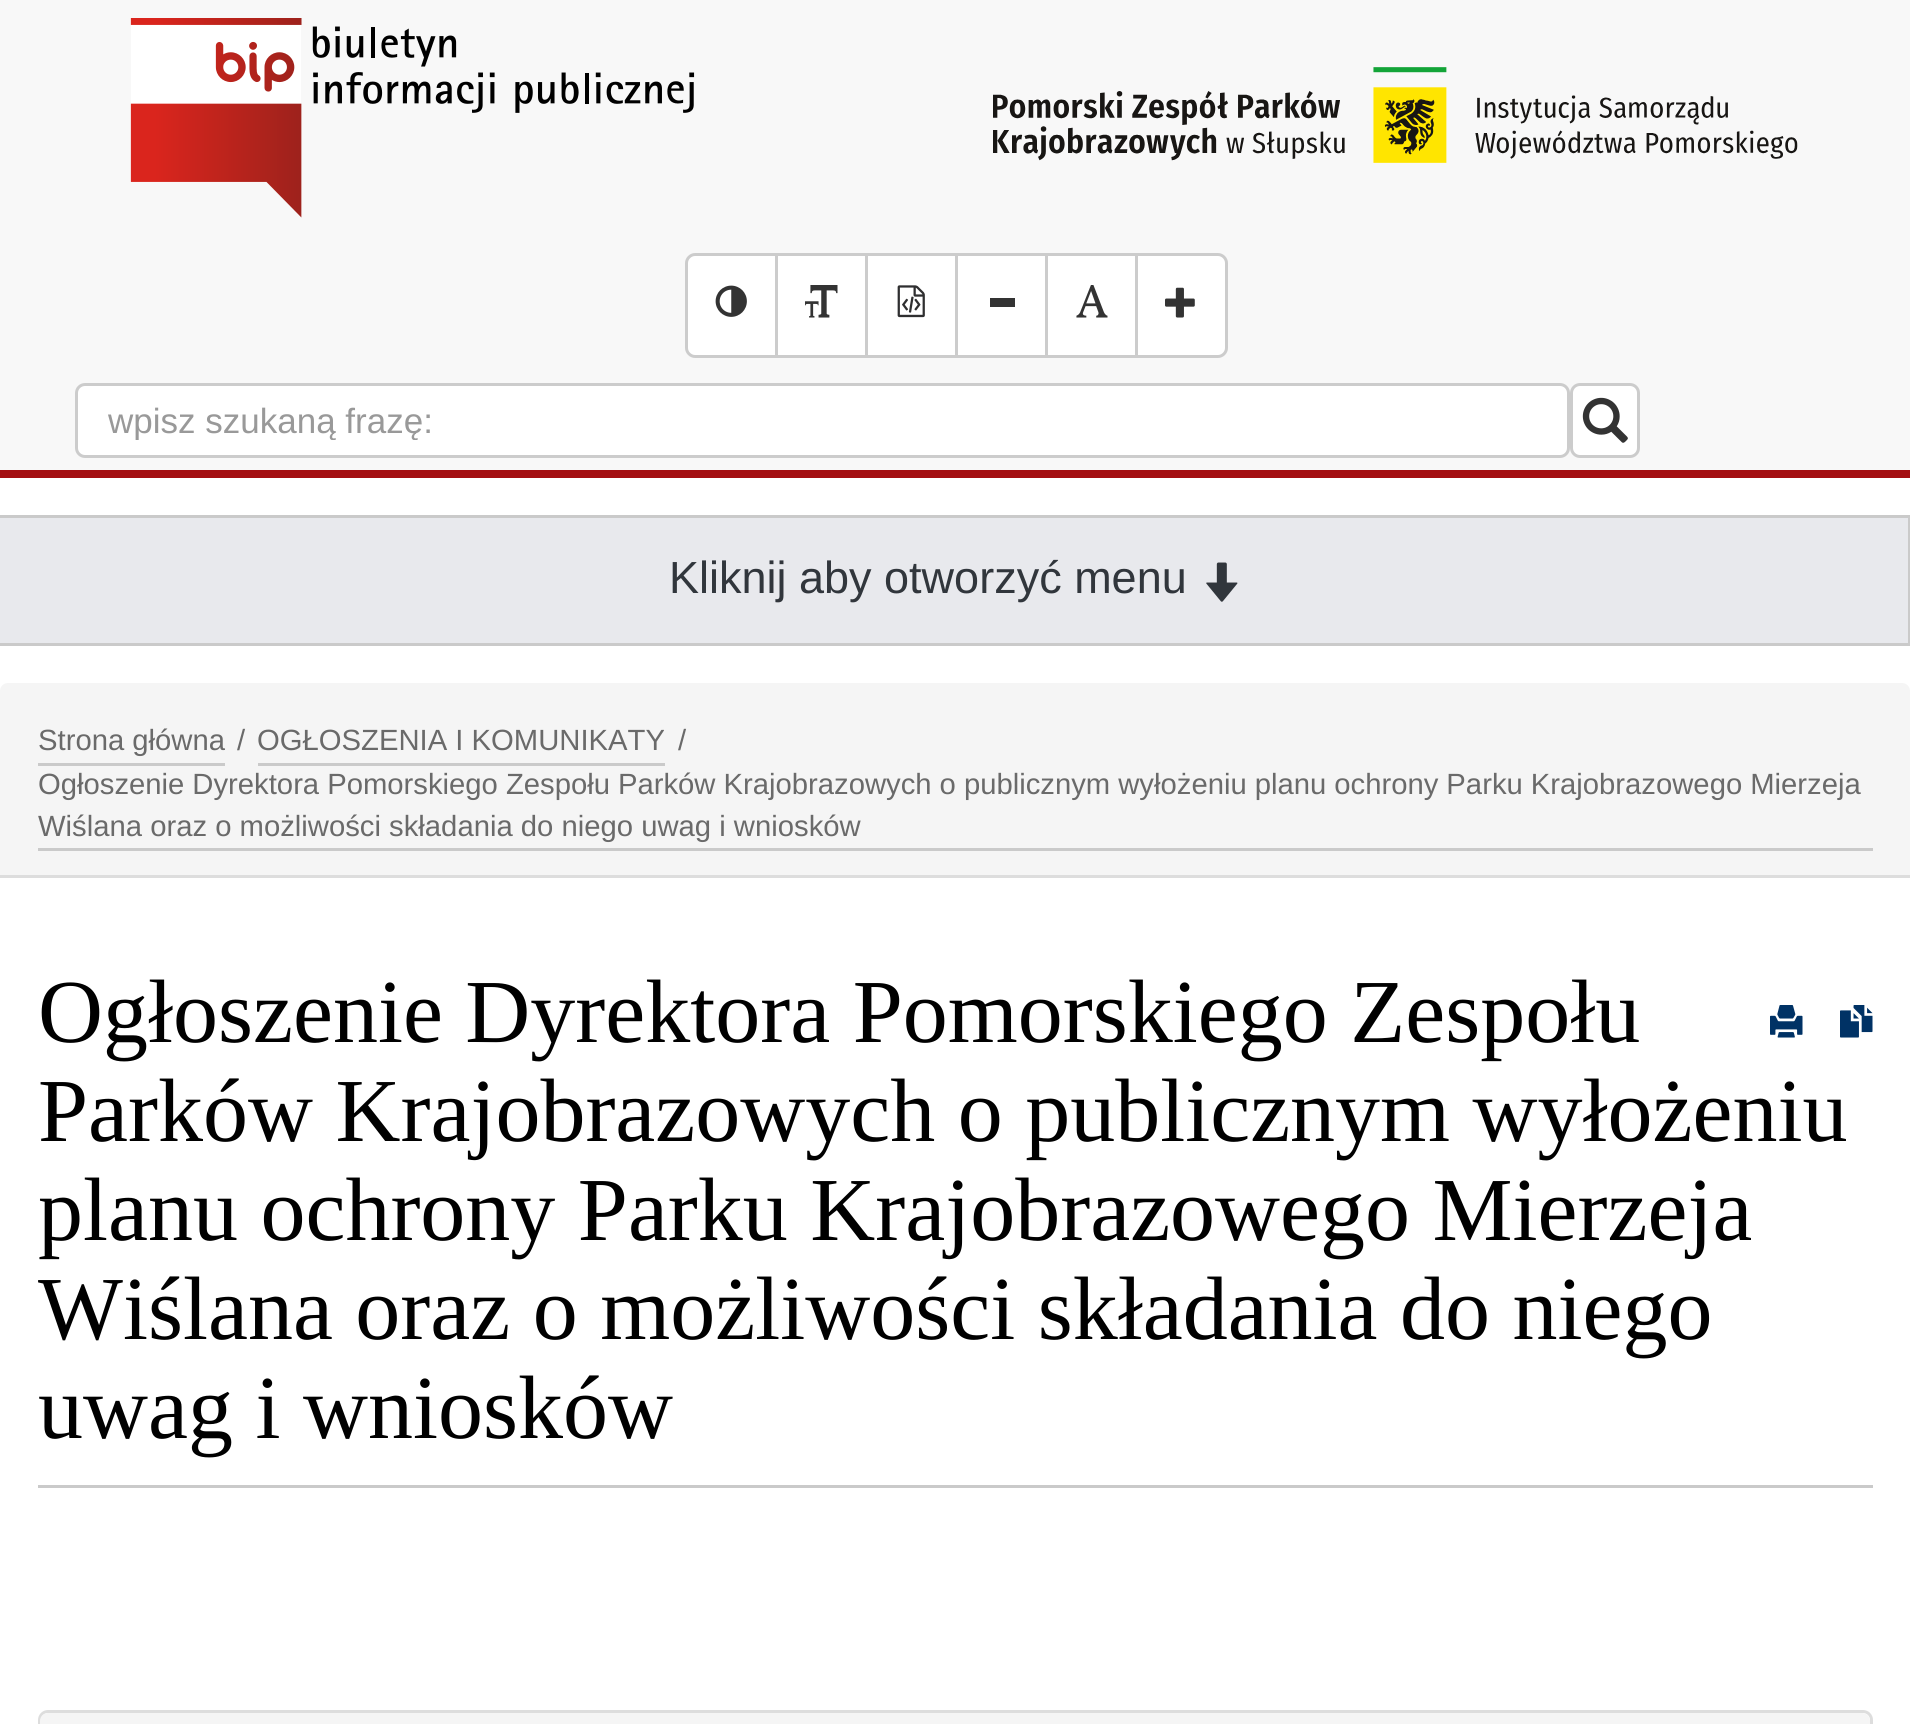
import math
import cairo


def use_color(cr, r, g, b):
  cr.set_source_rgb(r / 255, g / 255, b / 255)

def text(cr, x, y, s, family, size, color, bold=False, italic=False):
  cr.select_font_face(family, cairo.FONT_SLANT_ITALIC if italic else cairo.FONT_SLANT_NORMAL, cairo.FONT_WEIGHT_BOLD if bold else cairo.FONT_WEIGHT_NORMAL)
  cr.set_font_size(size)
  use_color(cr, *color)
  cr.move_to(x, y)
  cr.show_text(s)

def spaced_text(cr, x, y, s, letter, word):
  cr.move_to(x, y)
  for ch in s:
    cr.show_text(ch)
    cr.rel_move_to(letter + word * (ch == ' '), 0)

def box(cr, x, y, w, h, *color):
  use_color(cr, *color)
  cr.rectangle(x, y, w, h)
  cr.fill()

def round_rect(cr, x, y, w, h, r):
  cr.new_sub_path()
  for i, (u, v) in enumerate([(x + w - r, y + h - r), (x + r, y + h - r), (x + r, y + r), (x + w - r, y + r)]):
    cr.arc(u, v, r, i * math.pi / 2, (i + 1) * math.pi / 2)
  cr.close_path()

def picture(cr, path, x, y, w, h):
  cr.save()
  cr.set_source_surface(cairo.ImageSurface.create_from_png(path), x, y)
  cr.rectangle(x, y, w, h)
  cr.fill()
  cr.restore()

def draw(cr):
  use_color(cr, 255, 255, 255)
  cr.paint()
  box(cr, 0, 0, 1910, 470, 248, 248, 248)
  box(cr, 0, 470, 1910, 8, 164, 15, 18)
  picture(cr, "img_01.png", 130, 18, 565, 200)
  picture(cr, "img_02.png", 993, 67, 805, 96)
  use_color(cr, 255, 255, 255)
  cr.new_path()
  cr.move_to(695, 254.5)
  cr.line_to(776.5, 254.5)
  cr.line_to(776.5, 356.5)
  cr.line_to(695, 356.5)
  cr.curve_to(690.5, 356.5, 686.5, 352.5, 686.5, 348)
  cr.line_to(686.5, 263)
  cr.curve_to(686.5, 258.5, 690.5, 254.5, 695, 254.5)
  cr.close_path()
  cr.fill_preserve()
  use_color(cr, 204, 204, 204)
  cr.set_line_width(3)
  cr.stroke()
  picture(cr, "img_03.png", 715, 285, 32, 32)
  use_color(cr, 255, 255, 255)
  cr.rectangle(776.5, 254.5, 90, 102)
  cr.fill_preserve()
  use_color(cr, 204, 204, 204)
  cr.stroke()
  picture(cr, "img_04.png", 805, 285, 33, 33)
  use_color(cr, 255, 255, 255)
  cr.rectangle(866.5, 254.5, 90, 102)
  cr.fill_preserve()
  use_color(cr, 204, 204, 204)
  cr.stroke()
  picture(cr, "img_05.png", 897, 285, 28, 33)
  use_color(cr, 255, 255, 255)
  cr.rectangle(956.5, 254.5, 90, 102)
  cr.fill_preserve()
  use_color(cr, 204, 204, 204)
  cr.stroke()
  box(cr, 990, 298, 25, 9, 51, 51, 51)
  use_color(cr, 255, 255, 255)
  cr.rectangle(1046.5, 254.5, 90, 102)
  cr.fill_preserve()
  use_color(cr, 204, 204, 204)
  cr.stroke()
  picture(cr, "img_06.png", 1076, 285, 32, 33)
  use_color(cr, 255, 255, 255)
  cr.new_path()
  cr.move_to(1136.5, 254.5)
  cr.line_to(1218, 254.5)
  cr.curve_to(1222.5, 254.5, 1226.5, 258.5, 1226.5, 263)
  cr.line_to(1226.5, 348)
  cr.curve_to(1226.5, 352.5, 1222.5, 356.5, 1218, 356.5)
  cr.line_to(1136.5, 356.5)
  cr.close_path()
  cr.fill_preserve()
  use_color(cr, 204, 204, 204)
  cr.stroke()
  picture(cr, "img_07.png", 1165, 287, 30, 31)
  use_color(cr, 255, 255, 255)
  round_rect(cr, 76.5, 384.5, 1492, 72, 8.5)
  cr.fill_preserve()
  use_color(cr, 204, 204, 204)
  cr.stroke()
  use_color(cr, 255, 255, 255)
  round_rect(cr, 1571.5, 384.5, 67, 72, 8.5)
  cr.fill_preserve()
  use_color(cr, 204, 204, 204)
  cr.stroke()
  picture(cr, "img_08.png", 1582, 397, 46, 46)
  box(cr, 0, 515, 1910, 3, 202, 202, 202)
  box(cr, 0, 518, 1908, 125, 232, 233, 237)
  box(cr, 1908, 518, 2, 127, 202, 202, 202)
  box(cr, 0, 643, 1910, 3, 202, 202, 202)
  picture(cr, "img_09.png", 1206, 562, 32, 40)
  use_color(cr, 245, 245, 245)
  cr.new_path()
  cr.move_to(8, 683)
  cr.line_to(1902, 683)
  cr.curve_to(1906.5, 683, 1910, 686.5, 1910, 691)
  cr.line_to(1910, 878)
  cr.line_to(0, 878)
  cr.line_to(0, 691)
  cr.curve_to(0, 686.5, 3.5, 683, 8, 683)
  cr.close_path()
  cr.fill()
  box(cr, 0, 875, 1910, 3, 221, 221, 221)
  box(cr, 38, 763, 187, 3, 202, 202, 202)
  box(cr, 258, 763, 407, 3, 202, 202, 202)
  box(cr, 38, 848, 1835, 3, 202, 202, 202)
  box(cr, 38, 1485, 1835, 3, 202, 202, 202)
  picture(cr, "img_10.png", 1770, 1005, 33, 33)
  picture(cr, "img_11.png", 1840, 1005, 33, 33)
  round_rect(cr, 39.5, 1711.5, 1832, 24, 8.5)
  use_color(cr, 221, 221, 221)
  cr.stroke()
  use_color(cr, 245, 245, 245)
  cr.new_path()
  cr.move_to(48, 1713)
  cr.line_to(1862, 1713)
  cr.curve_to(1866.5, 1713, 1870, 1716.5, 1870, 1721)
  cr.line_to(1870, 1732)
  cr.line_to(40, 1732)
  cr.line_to(40, 1721)
  cr.curve_to(40, 1716.5, 43.5, 1713, 48, 1713)
  cr.close_path()
  cr.fill()
  cr.save()
  cr.rectangle(108, 400, 1430, 40)
  cr.clip()
  text(cr, 108, 433, "wpisz szukaną frazę:", "Liberation Sans", 35, (153, 153, 153))
  cr.restore()
  text(cr, 669, 593, "Kliknij aby otworzyć menu", "Liberation Sans", 45, (49, 54, 60))
  text(cr, 38, 750, "Strona główna", "Liberation Sans", 29.25, (106, 106, 106))
  text(cr, 237, 750, "/", "Liberation Sans", 29.25, (106, 106, 106))
  text(cr, 257, 750, "OGŁOSZENIA I KOMUNIKATY", "Liberation Sans", 29.25, (106, 106, 106))
  text(cr, 678, 750, "/", "Liberation Sans", 29.25, (106, 106, 106))
  spaced_text(cr, 38, 794, "Ogłoszenie Dyrektora Pomorskiego Zespołu Parków Krajobrazowych o publicznym wyłożeniu planu ochrony Parku Krajobrazowego Mierzeja", 0, -0.1)
  text(cr, 38, 836, "Wiślana oraz o możliwości składania do niego uwag i wniosków", "Liberation Sans", 29.25, (106, 106, 106))
  text(cr, 38, 1042, "Ogłoszenie Dyrektora Pomorskiego Zespołu", "Liberation Serif", 90, (0, 0, 0))
  text(cr, 38, 1141, "Parków Krajobrazowych o publicznym wyłożeniu", "Liberation Serif", 90, (0, 0, 0))
  text(cr, 38, 1240, "planu ochrony Parku Krajobrazowego Mierzeja", "Liberation Serif", 90, (0, 0, 0))
  text(cr, 38, 1339, "Wiślana oraz o możliwości składania do niego", "Liberation Serif", 90, (0, 0, 0))
  text(cr, 38, 1438, "uwag i wniosków", "Liberation Serif", 90, (0, 0, 0))


surface = cairo.ImageSurface(cairo.FORMAT_RGB24, 1910, 1724)
cr = cairo.Context(surface)
options = cairo.FontOptions()
options.set_hint_metrics(cairo.HINT_METRICS_OFF)
options.set_hint_style(cairo.HINT_STYLE_NONE)
cr.set_font_options(options)
cr.set_miter_limit(4)
draw(cr)
surface.write_to_png("out.png")
